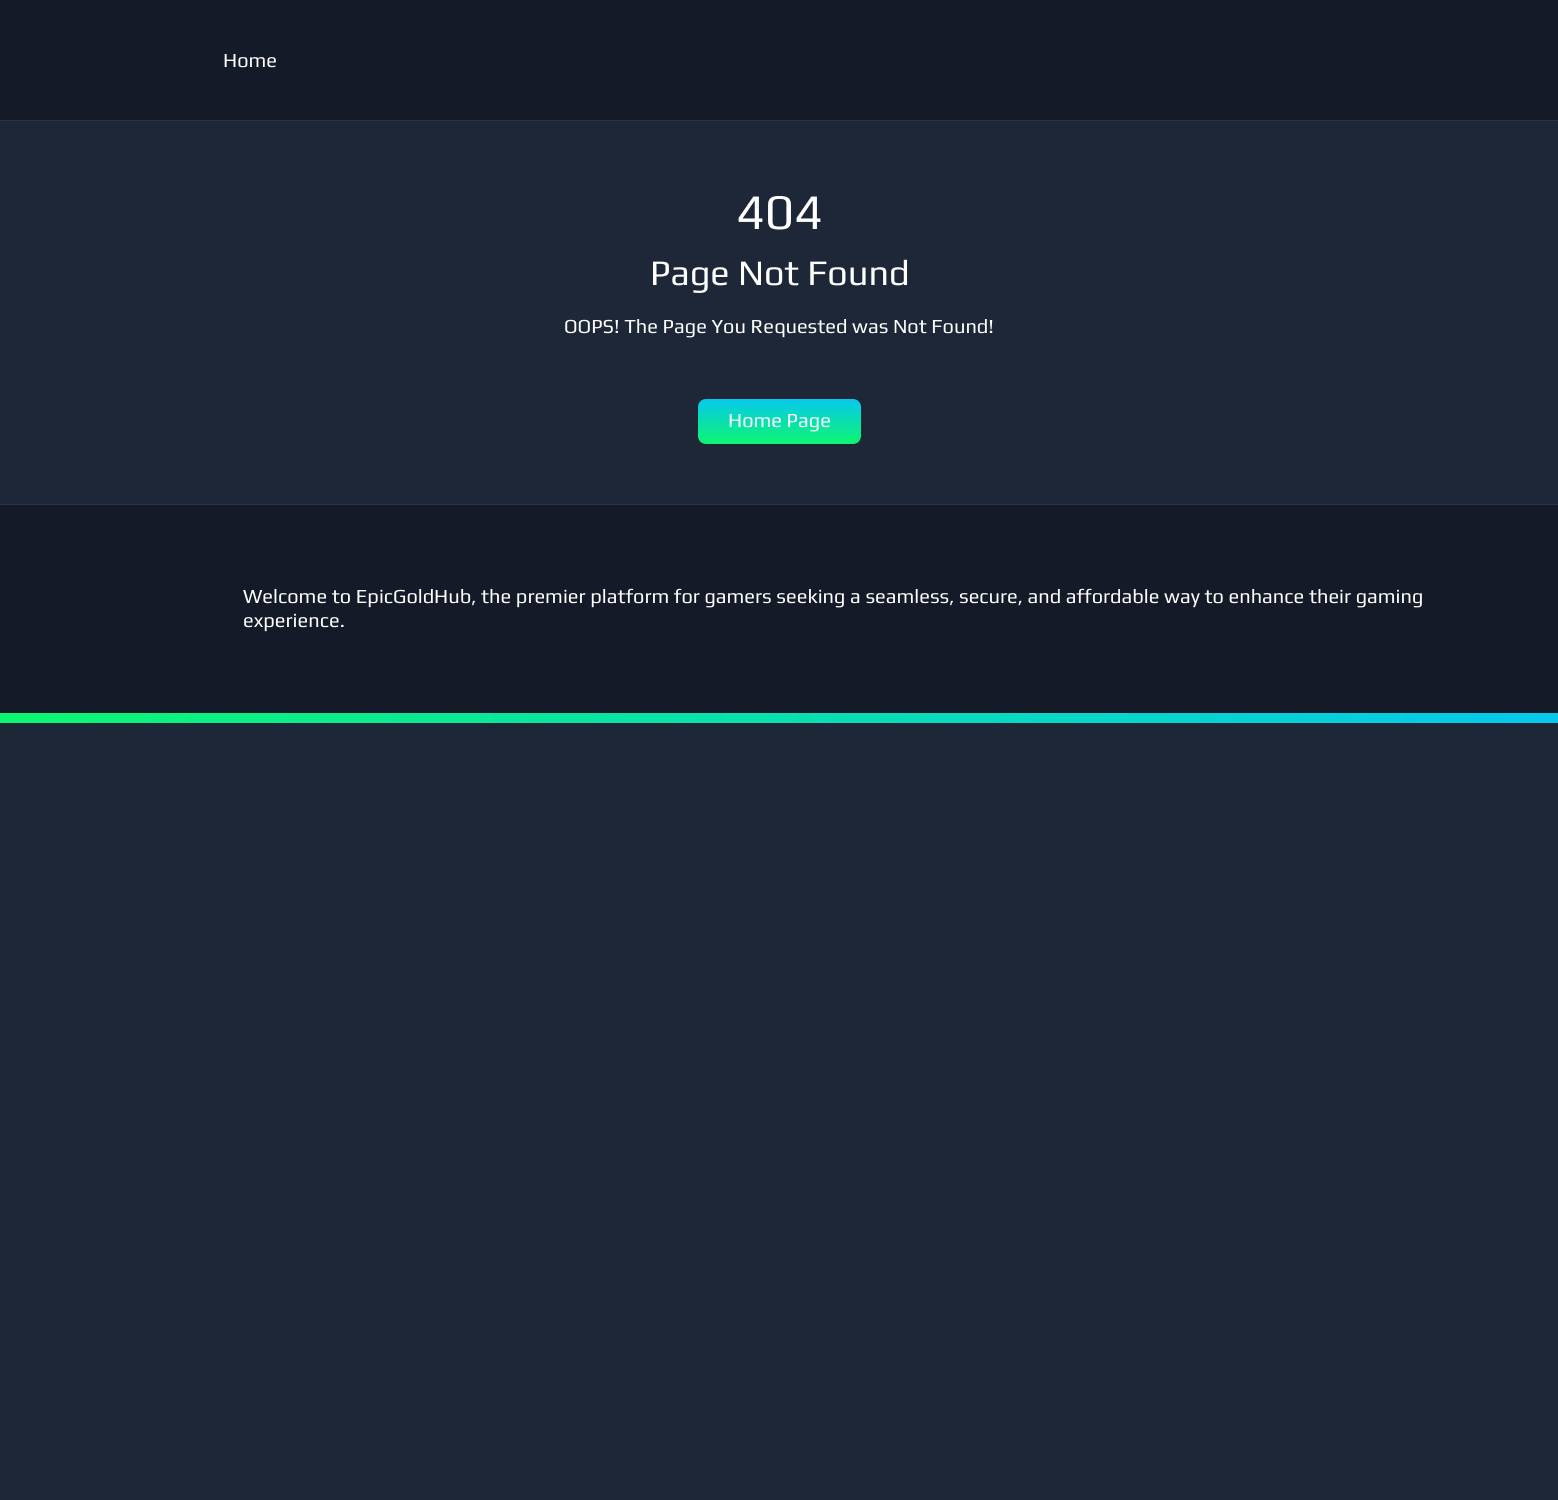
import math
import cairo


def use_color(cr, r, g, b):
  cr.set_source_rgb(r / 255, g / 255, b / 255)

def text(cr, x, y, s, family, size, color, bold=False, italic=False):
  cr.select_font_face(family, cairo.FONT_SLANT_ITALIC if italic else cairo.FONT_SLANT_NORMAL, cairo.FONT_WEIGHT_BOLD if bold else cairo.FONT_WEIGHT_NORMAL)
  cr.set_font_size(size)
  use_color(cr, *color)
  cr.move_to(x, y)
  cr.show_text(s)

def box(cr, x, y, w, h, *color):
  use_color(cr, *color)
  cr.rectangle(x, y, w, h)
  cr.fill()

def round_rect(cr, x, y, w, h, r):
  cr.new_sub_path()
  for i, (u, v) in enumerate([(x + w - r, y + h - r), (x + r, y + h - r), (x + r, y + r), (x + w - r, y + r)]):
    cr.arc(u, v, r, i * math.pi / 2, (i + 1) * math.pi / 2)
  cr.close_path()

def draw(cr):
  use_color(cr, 30, 39, 56)
  cr.paint()
  box(cr, 0, 0, 1558, 120, 20, 26, 40)
  box(cr, 0, 120, 1558, 1, 40, 52, 75)
  gradient = cairo.LinearGradient(779, 399, 779, 444)
  gradient.add_color_stop_rgba(0, 0.027, 0.784, 0.929, 1)
  gradient.add_color_stop_rgba(1, 0.051, 0.965, 0.443, 1)
  cr.set_source(gradient)
  round_rect(cr, 698, 399, 163, 45, 8)
  cr.fill()
  gradient = cairo.LinearGradient(0, 613, 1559, 613)
  gradient.add_color_stop_rgba(0, 0.051, 0.965, 0.443, 1)
  gradient.add_color_stop_rgba(1, 0.027, 0.784, 0.929, 1)
  cr.set_source(gradient)
  cr.rectangle(0, 713, 1558, 10)
  cr.fill()
  box(cr, 0, 505, 1558, 208, 20, 26, 40)
  box(cr, 0, 504, 1558, 1, 40, 52, 75)
  text(cr, 223, 67, "Home", "Play", 20, (255, 255, 255))
  text(cr, 736, 229, "404", "Play", 50, (255, 255, 255))
  text(cr, 650, 285, "Page Not Found", "Play", 36, (255, 255, 255))
  text(cr, 564, 333, "OOPS! The Page You Requested was Not Found!", "Play", 20, (255, 255, 255))
  text(cr, 728, 427, "Home Page", "Play", 20, (255, 255, 255))
  text(cr, 243, 603, "Welcome to EpicGoldHub, the premier platform for gamers seeking a seamless, secure, and affordable way to enhance their gaming", "Play", 20, (255, 255, 255))
  text(cr, 243, 627, "experience.", "Play", 20, (255, 255, 255))


surface = cairo.ImageSurface(cairo.FORMAT_RGB24, 1558, 1500)
cr = cairo.Context(surface)
options = cairo.FontOptions()
options.set_hint_metrics(cairo.HINT_METRICS_OFF)
options.set_hint_style(cairo.HINT_STYLE_NONE)
cr.set_font_options(options)
cr.set_miter_limit(4)
draw(cr)
surface.write_to_png("out.png")
